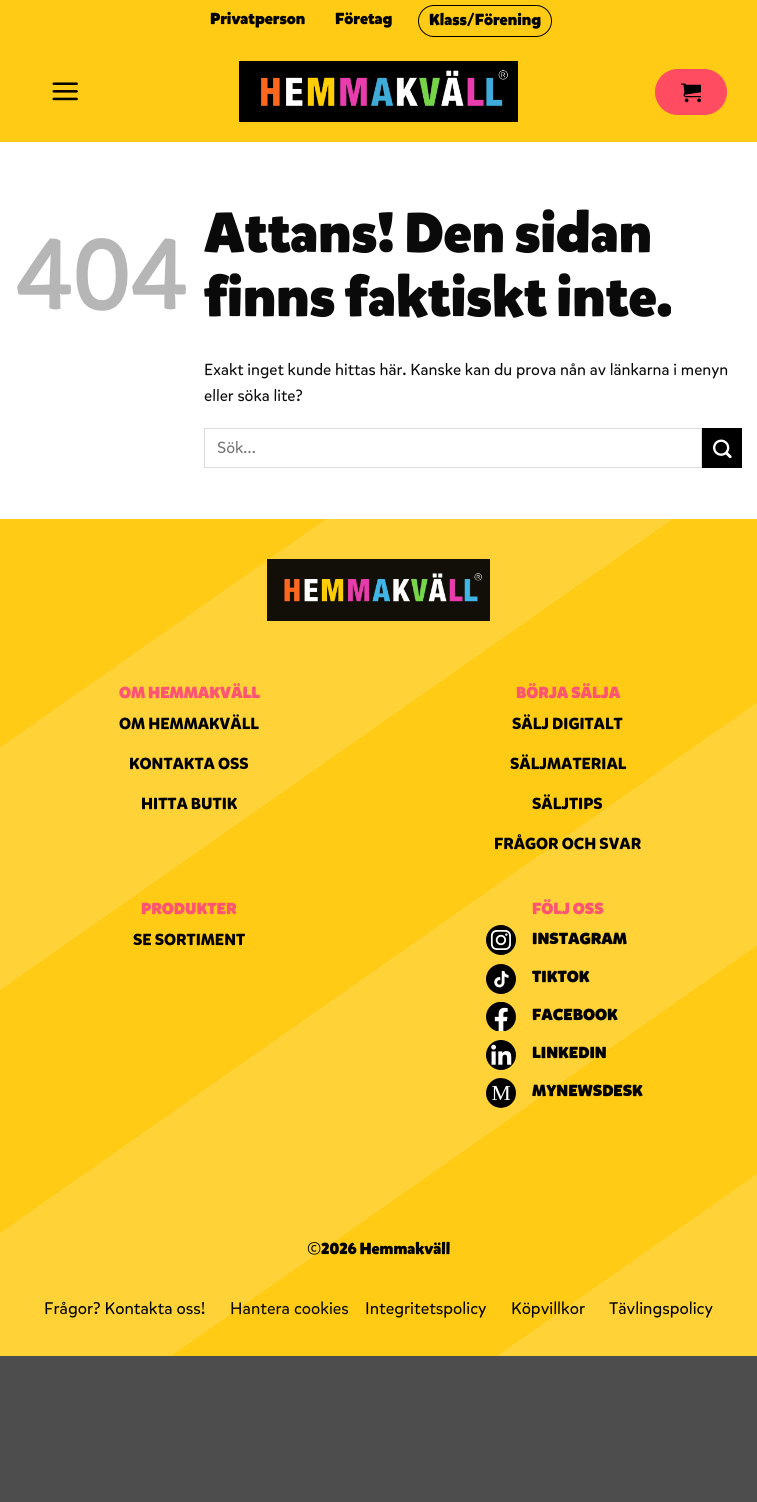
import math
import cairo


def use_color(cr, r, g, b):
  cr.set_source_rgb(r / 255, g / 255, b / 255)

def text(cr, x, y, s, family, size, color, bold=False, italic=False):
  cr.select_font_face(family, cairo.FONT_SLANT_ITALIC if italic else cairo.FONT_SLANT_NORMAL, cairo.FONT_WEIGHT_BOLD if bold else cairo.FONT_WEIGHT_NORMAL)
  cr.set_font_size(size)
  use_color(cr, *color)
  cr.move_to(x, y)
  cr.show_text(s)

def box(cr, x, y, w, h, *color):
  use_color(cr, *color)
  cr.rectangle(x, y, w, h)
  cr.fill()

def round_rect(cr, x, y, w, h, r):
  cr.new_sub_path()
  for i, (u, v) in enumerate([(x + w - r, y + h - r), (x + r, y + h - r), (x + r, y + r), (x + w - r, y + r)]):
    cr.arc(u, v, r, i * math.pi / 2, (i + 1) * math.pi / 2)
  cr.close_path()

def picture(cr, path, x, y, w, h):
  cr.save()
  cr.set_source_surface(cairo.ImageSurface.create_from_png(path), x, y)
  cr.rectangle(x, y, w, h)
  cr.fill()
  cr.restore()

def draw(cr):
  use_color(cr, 77, 77, 77)
  cr.paint()
  box(cr, 0, 142, 757, 377, 255, 255, 255)
  box(cr, 0, 0, 757, 142, 255, 203, 20)
  round_rect(cr, 418.5, 5.5, 133, 31, 15.5)
  use_color(cr, 0, 0, 0)
  cr.set_line_width(1)
  cr.stroke()
  picture(cr, "img_01.png", 52, 82, 26, 19)
  picture(cr, "img_02.png", 239, 61, 279, 61)
  use_color(cr, 255, 76, 96)
  round_rect(cr, 655.5, 69.5, 71, 45, 22.5)
  cr.fill_preserve()
  cr.stroke()
  picture(cr, "img_03.png", 681, 83, 20, 20)
  cr.rectangle(204.5, 428.5, 497, 39)
  use_color(cr, 221, 221, 221)
  cr.stroke()
  box(cr, 702, 428, 40, 40, 0, 0, 0)
  picture(cr, "img_04.png", 713, 439, 19, 20)
  gradient = cairo.LinearGradient(57, 479, 728, 1437)
  gradient.add_color_stop_rgba(0, 1, 0.796, 0.078, 1)
  gradient.add_color_stop_rgba(0.16, 1, 0.796, 0.078, 1)
  gradient.add_color_stop_rgba(0.16, 1, 0.827, 0.216, 1)
  gradient.add_color_stop_rgba(0.33, 1, 0.827, 0.216, 1)
  gradient.add_color_stop_rgba(0.33, 1, 0.796, 0.078, 1)
  gradient.add_color_stop_rgba(0.5, 1, 0.796, 0.078, 1)
  gradient.add_color_stop_rgba(0.5, 1, 0.827, 0.216, 1)
  gradient.add_color_stop_rgba(0.67, 1, 0.827, 0.216, 1)
  gradient.add_color_stop_rgba(0.67, 1, 0.796, 0.078, 1)
  gradient.add_color_stop_rgba(0.83, 1, 0.796, 0.078, 1)
  gradient.add_color_stop_rgba(0.83, 1, 0.827, 0.216, 1)
  gradient.add_color_stop_rgba(1, 1, 0.827, 0.216, 1)
  cr.set_source(gradient)
  cr.rectangle(0, 519, 757, 837)
  cr.fill()
  picture(cr, "img_05.png", 267, 559, 223, 62)
  picture(cr, "img_06.png", 486, 925, 30, 30)
  picture(cr, "img_07.png", 486, 964, 30, 30)
  picture(cr, "img_08.png", 486, 1002, 30, 29)
  picture(cr, "img_09.png", 486, 1040, 30, 30)
  picture(cr, "img_10.png", 486, 1078, 30, 30)
  text(cr, 210, 24, "Privatperson", "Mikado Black", 16, (0, 0, 0))
  text(cr, 335, 24, "Företag", "Mikado Black", 16, (0, 0, 0))
  text(cr, 429, 25, "Klass/Förening", "Mikado Black", 16, (0, 0, 0))
  text(cr, 15, 309, "404", "Mikado", 96, (182, 182, 182), bold=True)
  text(cr, 204, 252, "Attans! Den sidan", "Mikado Black", 56, (10, 10, 10))
  text(cr, 204, 316, "finns faktiskt inte.", "Mikado Black", 56, (10, 10, 10))
  text(cr, 204, 375, "Exakt inget kunde hittas här. Kanske kan du prova nån av länkarna i menyn", "Mikado", 16, (10, 10, 10))
  text(cr, 204, 401, "eller söka lite?", "Mikado", 16, (10, 10, 10))
  text(cr, 217, 453, "Sök…", "Mikado", 16, (117, 117, 117))
  text(cr, 119, 698, "OM HEMMAKVÄLL", "Mikado Black", 16, (255, 85, 114))
  text(cr, 119, 729, "OM HEMMAKVÄLL", "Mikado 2", 16, (0, 0, 0), bold=True)
  text(cr, 129, 769, "KONTAKTA OSS", "Mikado 2", 16, (0, 0, 0), bold=True)
  text(cr, 141, 809, "HITTA BUTIK", "Mikado 2", 16, (0, 0, 0), bold=True)
  text(cr, 516, 698, "BÖRJA SÄLJA", "Mikado Black", 16, (255, 85, 114))
  text(cr, 512, 729, "SÄLJ DIGITALT", "Mikado 2", 16, (0, 0, 0), bold=True)
  text(cr, 510, 769, "SÄLJMATERIAL", "Mikado 2", 16, (0, 0, 0), bold=True)
  text(cr, 532, 809, "SÄLJTIPS", "Mikado 2", 16, (0, 0, 0), bold=True)
  text(cr, 494, 849, "FRÅGOR OCH SVAR", "Mikado 2", 16, (0, 0, 0), bold=True)
  text(cr, 141, 914, "PRODUKTER", "Mikado Black", 16, (255, 85, 114))
  text(cr, 133, 945, "SE SORTIMENT", "Mikado 2", 16, (0, 0, 0), bold=True)
  text(cr, 532, 914, "FÖLJ OSS", "Mikado Black", 16, (255, 85, 114))
  text(cr, 532, 944, "INSTAGRAM", "Mikado Black", 16, (0, 0, 0))
  text(cr, 532, 982, "TIKTOK", "Mikado Black", 16, (0, 0, 0))
  text(cr, 532, 1020, "FACEBOOK", "Mikado Black", 16, (0, 0, 0))
  text(cr, 532, 1058, "LINKEDIN", "Mikado Black", 16, (0, 0, 0))
  text(cr, 532, 1096, "MYNEWSDESK", "Mikado Black", 16, (0, 0, 0))
  text(cr, 307, 1254, "©", "Mikado", 16, (0, 0, 0))
  text(cr, 321, 1254, "2026 Hemmakväll", "Mikado Black", 16, (0, 0, 0))
  text(cr, 44, 1314, "Frågor? Kontakta oss!", "Mikado", 16.75, (0, 0, 0))
  text(cr, 230, 1314, "Hantera cookies", "Mikado", 16.75, (10, 10, 10))
  text(cr, 365, 1314, "Integritetspolicy", "Mikado", 16.75, (0, 0, 0))
  text(cr, 511, 1314, "Köpvillkor", "Mikado", 16.75, (0, 0, 0))
  text(cr, 609, 1314, "Tävlingspolicy", "Mikado", 16.75, (0, 0, 0))


surface = cairo.ImageSurface(cairo.FORMAT_RGB24, 757, 1502)
cr = cairo.Context(surface)
options = cairo.FontOptions()
options.set_hint_metrics(cairo.HINT_METRICS_OFF)
options.set_hint_style(cairo.HINT_STYLE_NONE)
cr.set_font_options(options)
cr.set_miter_limit(4)
draw(cr)
surface.write_to_png("out.png")
